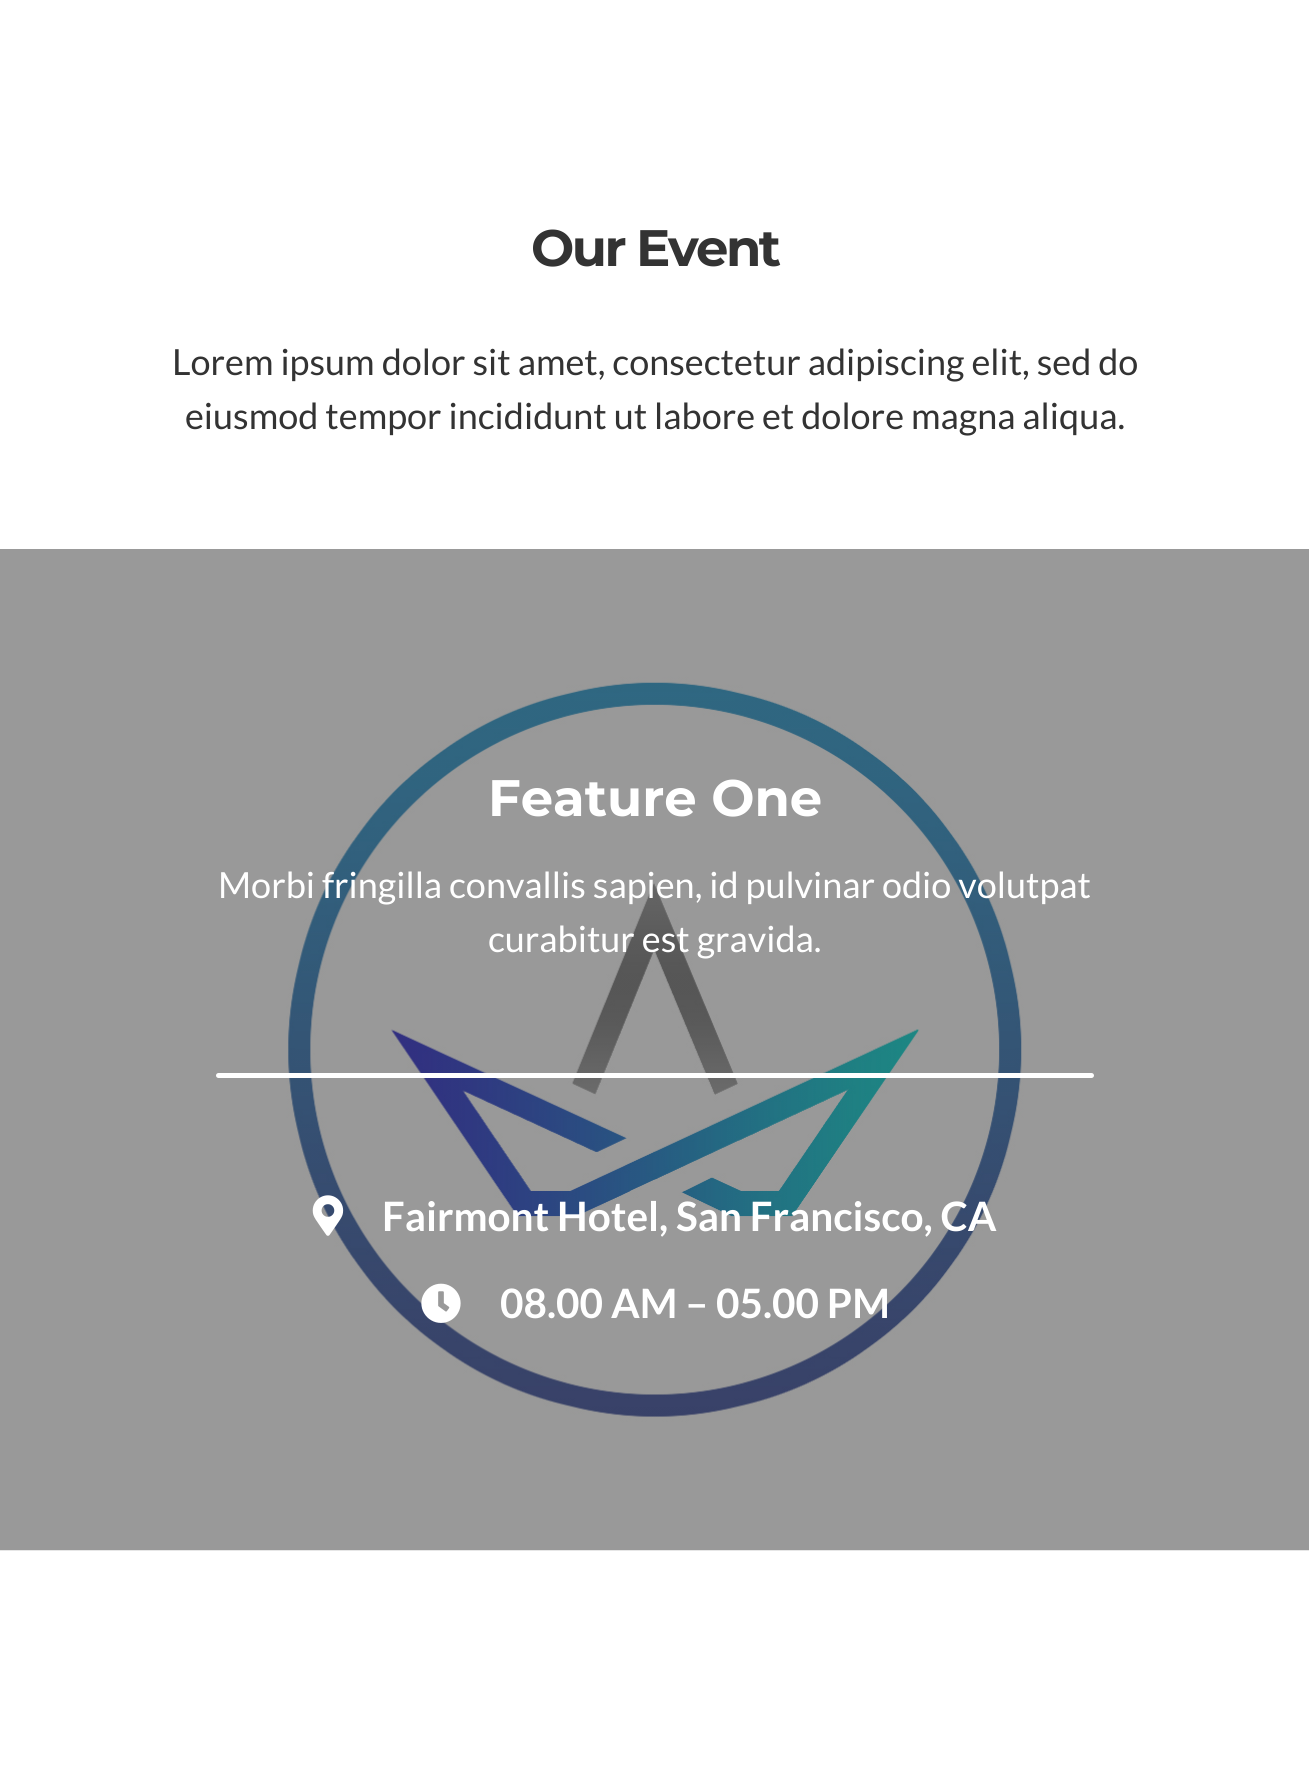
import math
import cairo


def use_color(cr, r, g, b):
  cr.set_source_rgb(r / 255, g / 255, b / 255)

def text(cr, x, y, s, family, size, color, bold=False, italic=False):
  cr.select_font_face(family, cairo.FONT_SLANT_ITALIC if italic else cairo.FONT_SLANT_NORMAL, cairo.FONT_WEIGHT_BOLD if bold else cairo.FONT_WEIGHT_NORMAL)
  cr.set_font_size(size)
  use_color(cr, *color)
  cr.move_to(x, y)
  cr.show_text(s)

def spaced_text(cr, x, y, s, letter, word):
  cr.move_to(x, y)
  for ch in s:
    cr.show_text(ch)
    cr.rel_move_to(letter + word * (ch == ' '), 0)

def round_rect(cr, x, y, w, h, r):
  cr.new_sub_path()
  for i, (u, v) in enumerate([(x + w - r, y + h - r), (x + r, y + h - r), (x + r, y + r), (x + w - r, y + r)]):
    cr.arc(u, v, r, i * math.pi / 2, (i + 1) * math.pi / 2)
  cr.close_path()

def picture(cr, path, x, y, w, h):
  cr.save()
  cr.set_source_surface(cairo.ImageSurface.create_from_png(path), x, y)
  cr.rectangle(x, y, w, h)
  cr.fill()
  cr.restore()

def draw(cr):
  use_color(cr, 255, 255, 255)
  cr.paint()
  picture(cr, "img_01.png", 0, 549, 1309, 1002)
  use_color(cr, 255, 255, 255)
  round_rect(cr, 216, 1073, 878, 5, 2.5)
  cr.fill()
  picture(cr, "img_02.png", 312, 1195, 32, 41)
  picture(cr, "img_03.png", 421, 1283, 40, 40)
  cr.select_font_face("Montserrat", cairo.FONT_SLANT_NORMAL, cairo.FONT_WEIGHT_BOLD)
  cr.set_font_size(51.25)
  use_color(cr, 51, 51, 51)
  spaced_text(cr, 531, 266, "Our Event", -2.5, 0)
  text(cr, 172, 375, "Lorem ipsum dolor sit amet, consectetur adipiscing elit, sed do", "Lato", 36, (51, 51, 51))
  text(cr, 185, 429, "eiusmod tempor incididunt ut labore et dolore magna aliqua.", "Lato", 36, (51, 51, 51))
  text(cr, 488, 816, "Feature One", "Montserrat", 51.25, (255, 255, 255), bold=True)
  text(cr, 218, 898, "Morbi fringilla convallis sapien, id pulvinar odio volutpat", "Lato", 36, (255, 255, 255))
  text(cr, 488, 952, "curabitur est gravida.", "Lato", 36, (255, 255, 255))
  text(cr, 382, 1231, "Fairmont Hotel, San Francisco, CA", "Lato", 40.5, (255, 255, 255), bold=True)
  text(cr, 500, 1318, "08.00 AM – 05.00 PM", "Lato", 40.5, (255, 255, 255), bold=True)


surface = cairo.ImageSurface(cairo.FORMAT_RGB24, 1309, 1772)
cr = cairo.Context(surface)
options = cairo.FontOptions()
options.set_hint_metrics(cairo.HINT_METRICS_OFF)
options.set_hint_style(cairo.HINT_STYLE_NONE)
cr.set_font_options(options)
cr.set_miter_limit(4)
draw(cr)
surface.write_to_png("out.png")
